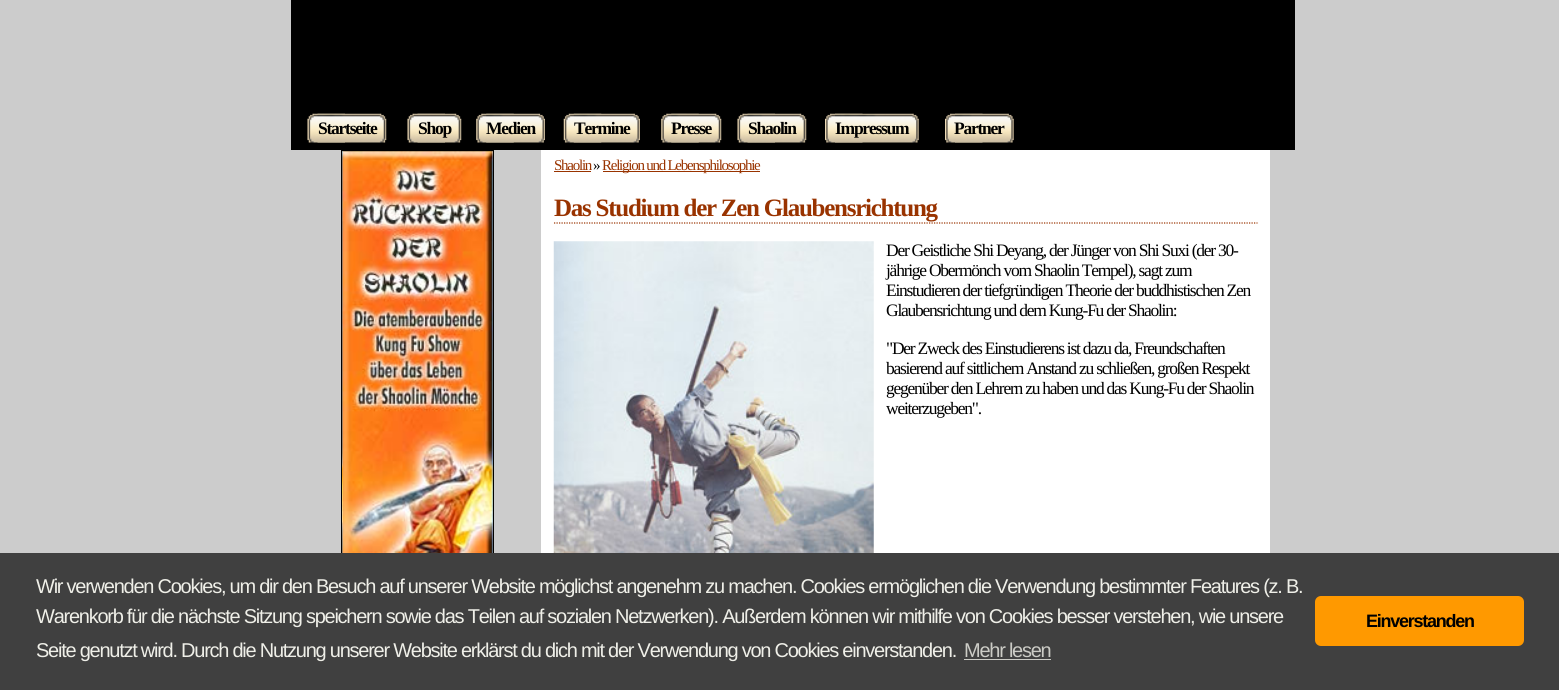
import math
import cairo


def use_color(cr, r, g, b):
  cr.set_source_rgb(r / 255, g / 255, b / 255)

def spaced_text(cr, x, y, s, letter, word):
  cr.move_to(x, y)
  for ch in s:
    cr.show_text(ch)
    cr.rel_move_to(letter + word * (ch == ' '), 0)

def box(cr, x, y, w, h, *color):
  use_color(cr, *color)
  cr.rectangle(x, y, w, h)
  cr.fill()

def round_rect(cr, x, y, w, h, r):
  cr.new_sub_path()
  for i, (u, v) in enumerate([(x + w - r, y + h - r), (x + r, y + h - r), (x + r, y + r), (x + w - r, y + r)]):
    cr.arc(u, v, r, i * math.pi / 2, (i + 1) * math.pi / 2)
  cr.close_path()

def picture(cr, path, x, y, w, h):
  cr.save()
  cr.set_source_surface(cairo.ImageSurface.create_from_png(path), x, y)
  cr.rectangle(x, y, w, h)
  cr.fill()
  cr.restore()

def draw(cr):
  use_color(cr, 204, 204, 204)
  cr.paint()
  box(cr, 291, 0, 1004, 150, 0, 0, 0)
  picture(cr, "img_01.png", 307, 113, 38, 30)
  picture(cr, "img_02.png", 317, 113, 70, 30)
  picture(cr, "img_03.png", 407, 113, 38, 30)
  picture(cr, "img_04.png", 417, 113, 45, 30)
  picture(cr, "img_05.png", 476, 113, 38, 30)
  picture(cr, "img_06.png", 486, 113, 59, 30)
  picture(cr, "img_07.png", 563, 113, 39, 30)
  picture(cr, "img_08.png", 573, 113, 67, 30)
  picture(cr, "img_09.png", 661, 113, 38, 30)
  picture(cr, "img_10.png", 671, 113, 51, 30)
  picture(cr, "img_01.png", 737, 113, 38, 30)
  picture(cr, "img_11.png", 747, 113, 60, 30)
  picture(cr, "img_12.png", 825, 113, 38, 30)
  picture(cr, "img_13.png", 835, 113, 84, 30)
  picture(cr, "img_12.png", 945, 113, 38, 30)
  picture(cr, "img_14.png", 955, 113, 59, 30)
  picture(cr, "img_15.png", 342, 151, 151, 402)
  cr.rectangle(341.5, 150.5, 152, 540)
  cr.set_line_width(1)
  cr.stroke()
  box(cr, 541, 150, 729, 403, 255, 255, 255)
  box(cr, 554, 171, 37, 1, 153, 51, 0)
  box(cr, 603, 171, 157, 1, 153, 51, 0)
  cr.new_path()
  cr.move_to(554, 223)
  cr.line_to(1257.5, 223)
  cr.set_line_width(1.2)
  cr.set_dash([1.25, 1.25])
  cr.stroke()
  picture(cr, "img_16.png", 553, 241, 321, 312)
  box(cr, 0, 553, 1559, 137, 64, 64, 64)
  box(cr, 964, 659, 87, 1, 204, 204, 198)
  use_color(cr, 255, 153, 0)
  round_rect(cr, 1315, 596, 209, 50, 6)
  cr.fill()
  cr.select_font_face("Liberation Serif", cairo.FONT_SLANT_NORMAL, cairo.FONT_WEIGHT_BOLD)
  cr.set_font_size(17.5)
  use_color(cr, 0, 0, 0)
  spaced_text(cr, 318, 134, "Startseite", -1.25, 0)
  spaced_text(cr, 418, 134, "Shop", -1.25, 0)
  spaced_text(cr, 486, 134, "Medien", -1.25, 0)
  spaced_text(cr, 574, 134, "Termine", -1.25, 0)
  spaced_text(cr, 671, 134, "Presse", -1.25, 0)
  spaced_text(cr, 748, 134, "Shaolin", -1.25, 0)
  spaced_text(cr, 835, 134, "Impressum", -1.25, 0)
  spaced_text(cr, 954, 134, "Partner", -1.25, 0)
  cr.select_font_face("Liberation Serif")
  cr.set_font_size(15)
  use_color(cr, 153, 51, 0)
  spaced_text(cr, 554, 170, "Shaolin", -1.25, 0)
  use_color(cr, 0, 0, 0)
  spaced_text(cr, 593, 170, "»", -1.25, 0)
  use_color(cr, 153, 51, 0)
  spaced_text(cr, 602, 170, "Religion und Lebensphilosophie", -1.25, 0)
  cr.select_font_face("Liberation Serif", cairo.FONT_SLANT_NORMAL, cairo.FONT_WEIGHT_BOLD)
  cr.set_font_size(25)
  spaced_text(cr, 554, 216, "Das Studium der Zen Glaubensrichtung", -1.25, 0)
  cr.select_font_face("Liberation Serif")
  cr.set_font_size(17.5)
  use_color(cr, 0, 0, 0)
  spaced_text(cr, 886, 256, "Der Geistliche Shi Deyang, der Jünger von Shi Suxi (der 30-", -1.25, 0)
  spaced_text(cr, 886, 276, "jährige Obermönch vom Shaolin Tempel), sagt zum", -1.25, 0)
  spaced_text(cr, 886, 296, "Einstudieren der tiefgründigen Theorie der buddhistischen Zen", -1.25, 0)
  spaced_text(cr, 886, 316, "Glaubensrichtung und dem Kung-Fu der Shaolin:", -1.25, 0)
  spaced_text(cr, 886, 354, "\"Der Zweck des Einstudierens ist dazu da, Freundschaften", -1.25, 0)
  spaced_text(cr, 886, 374, "basierend auf sittlichem Anstand zu schließen, großen Respekt", -1.25, 0)
  spaced_text(cr, 886, 394, "gegenüber den Lehrern zu haben und das Kung-Fu der Shaolin", -1.25, 0)
  spaced_text(cr, 886, 414, "weiterzugeben\".", -1.25, 0)
  cr.select_font_face("Liberation Sans")
  cr.set_font_size(20)
  use_color(cr, 239, 239, 232)
  spaced_text(cr, 36, 593, "Wir verwenden Cookies, um dir den Besuch auf unserer Website möglichst angenehm zu machen. Cookies ermöglichen die Verwendung bestimmter Features (z. B.", -1.25, 0)
  spaced_text(cr, 36, 623, "Warenkorb für die nächste Sitzung speichern sowie das Teilen auf sozialen Netzwerken). Außerdem können wir mithilfe von Cookies besser verstehen, wie unsere", -1.25, 0)
  spaced_text(cr, 36, 657, "Seite genutzt wird. Durch die Nutzung unserer Website erklärst du dich mit der Verwendung von Cookies einverstanden.", -1.25, 0)
  use_color(cr, 204, 204, 198)
  spaced_text(cr, 964, 657, "Mehr lesen", -1.25, 0)
  cr.select_font_face("Liberation Sans", cairo.FONT_SLANT_NORMAL, cairo.FONT_WEIGHT_BOLD)
  cr.set_font_size(18)
  use_color(cr, 0, 0, 0)
  spaced_text(cr, 1366, 627, "Einverstanden", -1.25, 0)


surface = cairo.ImageSurface(cairo.FORMAT_RGB24, 1559, 690)
cr = cairo.Context(surface)
options = cairo.FontOptions()
options.set_hint_metrics(cairo.HINT_METRICS_OFF)
options.set_hint_style(cairo.HINT_STYLE_NONE)
cr.set_font_options(options)
cr.set_miter_limit(4)
draw(cr)
surface.write_to_png("out.png")
